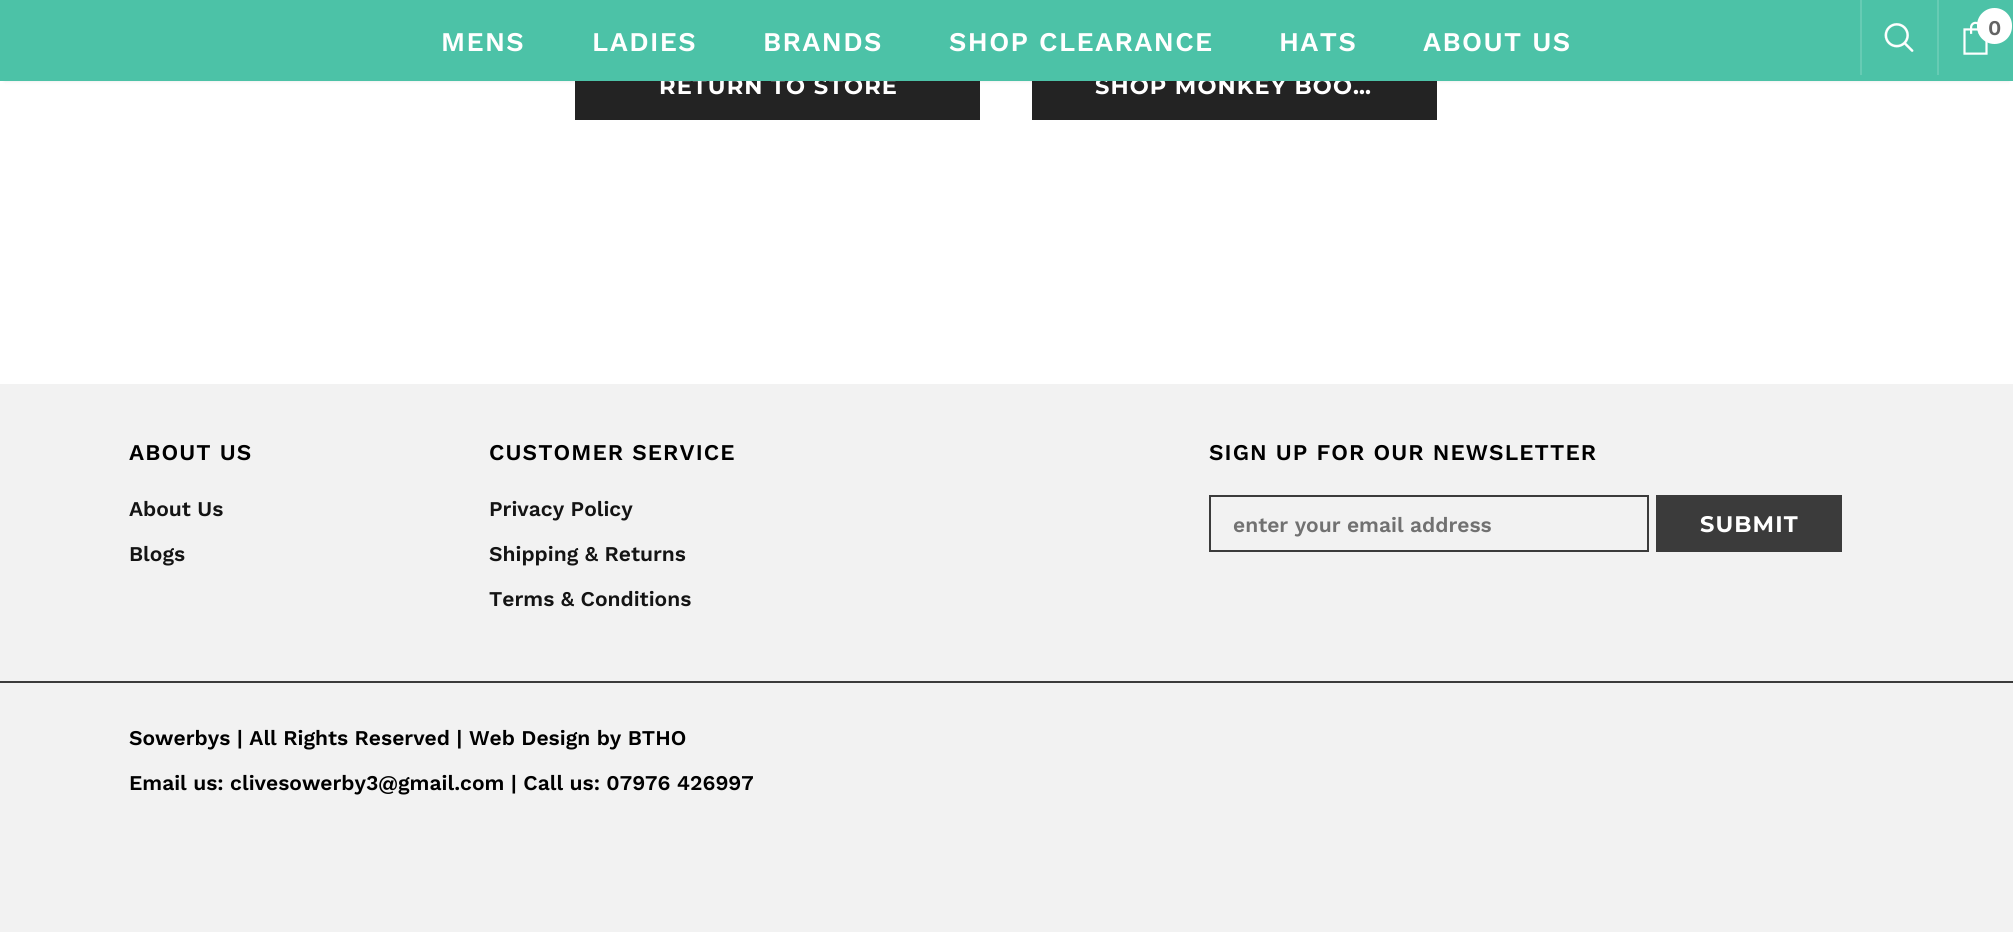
import math
import cairo


def use_color(cr, r, g, b):
  cr.set_source_rgb(r / 255, g / 255, b / 255)

def text(cr, x, y, s, family, size, color, bold=False, italic=False):
  cr.select_font_face(family, cairo.FONT_SLANT_ITALIC if italic else cairo.FONT_SLANT_NORMAL, cairo.FONT_WEIGHT_BOLD if bold else cairo.FONT_WEIGHT_NORMAL)
  cr.set_font_size(size)
  use_color(cr, *color)
  cr.move_to(x, y)
  cr.show_text(s)

def spaced_text(cr, x, y, s, letter, word):
  cr.move_to(x, y)
  for ch in s:
    cr.show_text(ch)
    cr.rel_move_to(letter + word * (ch == ' '), 0)

def box(cr, x, y, w, h, *color):
  use_color(cr, *color)
  cr.rectangle(x, y, w, h)
  cr.fill()

def round_rect(cr, x, y, w, h, r):
  cr.new_sub_path()
  for i, (u, v) in enumerate([(x + w - r, y + h - r), (x + r, y + h - r), (x + r, y + r), (x + w - r, y + r)]):
    cr.arc(u, v, r, i * math.pi / 2, (i + 1) * math.pi / 2)
  cr.close_path()

def shadow(cr, x, y, w, h, r, blur, alpha):
  cr.push_group_with_content(cairo.CONTENT_ALPHA)
  cr.set_operator(cairo.OPERATOR_SOURCE)
  for i in range(15, -16, -2):
    e = blur * i / 6
    if min(w, h) + 2 * e > 0:
      cr.set_source_rgba(0, 0, 0, alpha * math.erfc((i - 1) / 8.5) / 2)
      round_rect(cr, x - e, y - e, w + 2 * e, h + 2 * e, max(0, min(r + e + blur * .6, min(w, h) / 2 + e)))
      cr.fill()
  cr.mask(cr.pop_group())

def picture(cr, path, x, y, w, h):
  cr.save()
  cr.set_source_surface(cairo.ImageSurface.create_from_png(path), x, y)
  cr.rectangle(x, y, w, h)
  cr.fill()
  cr.restore()

def draw(cr):
  use_color(cr, 255, 255, 255)
  cr.paint()
  box(cr, 575, 81, 405, 39, 35, 35, 35)
  box(cr, 1032, 81, 405, 39, 35, 35, 35)
  use_color(cr, 0, 0, 0)
  shadow(cr, 5, 9, 2004, 72, 0, 2, 0.1)
  box(cr, 0, 384, 2013, 548, 242, 242, 242)
  cr.rectangle(1210, 496, 438, 55)
  use_color(cr, 59, 59, 59)
  cr.stroke()
  box(cr, 1656, 495, 186, 57, 59, 59, 59)
  box(cr, 0, 681, 2013, 2, 59, 59, 59)
  cr.select_font_face("Montserrat", cairo.FONT_SLANT_NORMAL, cairo.FONT_WEIGHT_BOLD)
  cr.set_font_size(22.5)
  use_color(cr, 255, 255, 255)
  spaced_text(cr, 659, 94, "RETURN TO STORE", 1.1, 0)
  spaced_text(cr, 1095, 94, "SHOP MONKEY BOO…", 1.1, 0)
  box(cr, 0, 0, 2013, 81, 76, 194, 167)
  cr.select_font_face("Work Sans SemiBold")
  cr.set_font_size(27)
  use_color(cr, 255, 255, 255)
  spaced_text(cr, 1423, 51, "ABOUT US", 1.4, 0)
  spaced_text(cr, 1279, 51, "HATS", 1.4, 0)
  spaced_text(cr, 949, 51, "SHOP CLEARANCE", 1.4, 0)
  spaced_text(cr, 763, 51, "BRANDS", 1.4, 0)
  spaced_text(cr, 592, 51, "LADIES", 1.4, 0)
  spaced_text(cr, 441, 51, "MENS", 1.4, 0)
  picture(cr, "img_02.png", 1963, 21, 25, 34)
  round_rect(cr, 1977, 8, 35, 36, 17.5)
  cr.fill()
  text(cr, 1988, 35, "0", "Work Sans SemiBold", 21, (100, 100, 100))
  box(cr, 1937, 0, 2, 75, 103, 203, 180)
  picture(cr, "img_01.png", 1884, 23, 30, 29)
  box(cr, 1860, 0, 2, 75, 103, 203, 180)
  cr.set_font_size(22.5)
  use_color(cr, 0, 0, 0)
  spaced_text(cr, 129, 460, "ABOUT US", 1.1, 0)
  text(cr, 129, 516, "About Us", "Work Sans SemiBold", 21, (20, 20, 20))
  text(cr, 129, 561, "Blogs", "Work Sans SemiBold", 21, (20, 20, 20))
  cr.set_font_size(22.5)
  use_color(cr, 0, 0, 0)
  spaced_text(cr, 489, 460, "CUSTOMER SERVICE", 1.1, 0)
  text(cr, 489, 516, "Privacy Policy", "Work Sans SemiBold", 21, (20, 20, 20))
  text(cr, 489, 561, "Shipping & Returns", "Work Sans SemiBold", 21, (20, 20, 20))
  text(cr, 489, 606, "Terms & Conditions", "Work Sans SemiBold", 21, (20, 20, 20))
  cr.set_font_size(22.5)
  use_color(cr, 0, 0, 0)
  spaced_text(cr, 1209, 460, "SIGN UP FOR OUR NEWSLETTER", 1.1, 0)
  text(cr, 1233, 532, "enter your email address", "Work Sans SemiBold", 21, (113, 113, 113))
  cr.select_font_face("Montserrat", cairo.FONT_SLANT_NORMAL, cairo.FONT_WEIGHT_BOLD)
  cr.set_font_size(22.5)
  use_color(cr, 255, 255, 255)
  spaced_text(cr, 1700, 532, "SUBMIT", 1.1, 0)
  text(cr, 129, 745, "Sowerbys | All Rights Reserved | Web Design by BTHO", "Work Sans SemiBold", 21, (0, 0, 0))
  text(cr, 129, 790, "Email us: clivesowerby3@gmail.com | Call us: 07976 426997", "Work Sans SemiBold", 21, (0, 0, 0))


surface = cairo.ImageSurface(cairo.FORMAT_RGB24, 2013, 932)
cr = cairo.Context(surface)
options = cairo.FontOptions()
options.set_hint_metrics(cairo.HINT_METRICS_OFF)
options.set_hint_style(cairo.HINT_STYLE_NONE)
cr.set_font_options(options)
cr.set_miter_limit(4)
draw(cr)
surface.write_to_png("out.png")
